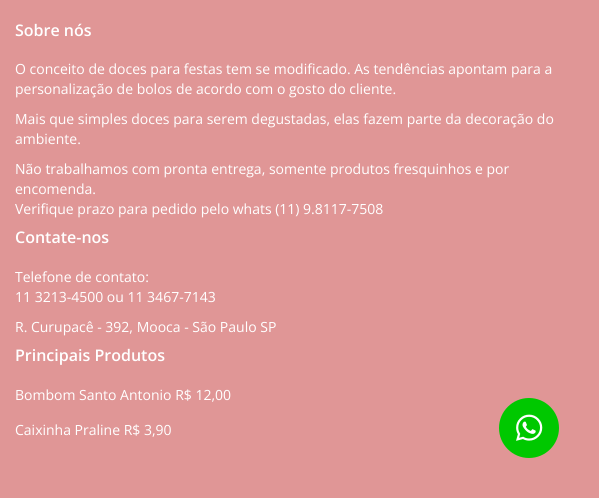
import math
import cairo


def use_color(cr, r, g, b):
  cr.set_source_rgb(r / 255, g / 255, b / 255)

def text(cr, x, y, s, family, size, color, bold=False, italic=False):
  cr.select_font_face(family, cairo.FONT_SLANT_ITALIC if italic else cairo.FONT_SLANT_NORMAL, cairo.FONT_WEIGHT_BOLD if bold else cairo.FONT_WEIGHT_NORMAL)
  cr.set_font_size(size)
  use_color(cr, *color)
  cr.move_to(x, y)
  cr.show_text(s)

def picture(cr, path, x, y, w, h):
  cr.save()
  cr.set_source_surface(cairo.ImageSurface.create_from_png(path), x, y)
  cr.rectangle(x, y, w, h)
  cr.fill()
  cr.restore()

def draw(cr):
  use_color(cr, 224, 150, 150)
  cr.paint()
  use_color(cr, 0, 200, 0)
  cr.arc(529, 428, 30, 0, 2 * math.pi)
  cr.fill()
  picture(cr, "img_01.png", 516, 414, 27, 27)
  text(cr, 15, 36, "Sobre nós", "Open Sans SemiBold", 16, (255, 255, 255))
  text(cr, 15, 74, "O conceito de doces para festas tem se modificado. As tendências apontam para a", "Open Sans", 14, (255, 255, 255))
  text(cr, 15, 94, "personalização de bolos de acordo com o gosto do cliente.", "Open Sans", 14, (255, 255, 255))
  text(cr, 15, 124, "Mais que simples doces para serem degustadas, elas fazem parte da decoração do", "Open Sans", 14, (255, 255, 255))
  text(cr, 15, 144, "ambiente.", "Open Sans", 14, (255, 255, 255))
  text(cr, 15, 174, "Não trabalhamos com pronta entrega, somente produtos fresquinhos e por", "Open Sans", 14, (255, 255, 255))
  text(cr, 15, 194, "encomenda.", "Open Sans", 14, (255, 255, 255))
  text(cr, 15, 214, "Verifique prazo para pedido pelo whats (11) 9.8117-7508", "Open Sans", 14, (255, 255, 255))
  text(cr, 15, 243, "Contate-nos", "Open Sans SemiBold", 16, (255, 255, 255))
  text(cr, 15, 282, "Telefone de contato:", "Open Sans", 14, (255, 255, 255))
  text(cr, 15, 302, "11 3213-4500 ou 11 3467-7143", "Open Sans", 14, (255, 255, 255))
  text(cr, 15, 332, "R. Curupacê - 392, Mooca - São Paulo SP", "Open Sans", 14, (255, 255, 255))
  text(cr, 15, 361, "Principais Produtos", "Open Sans SemiBold", 16, (255, 255, 255))
  text(cr, 15, 400, "Bombom Santo Antonio R$ 12,00", "Open Sans", 14, (255, 255, 255))
  text(cr, 15, 435, "Caixinha Praline R$ 3,90", "Open Sans", 14, (255, 255, 255))


surface = cairo.ImageSurface(cairo.FORMAT_RGB24, 599, 498)
cr = cairo.Context(surface)
options = cairo.FontOptions()
options.set_hint_metrics(cairo.HINT_METRICS_OFF)
options.set_hint_style(cairo.HINT_STYLE_NONE)
cr.set_font_options(options)
cr.set_miter_limit(4)
draw(cr)
surface.write_to_png("out.png")
